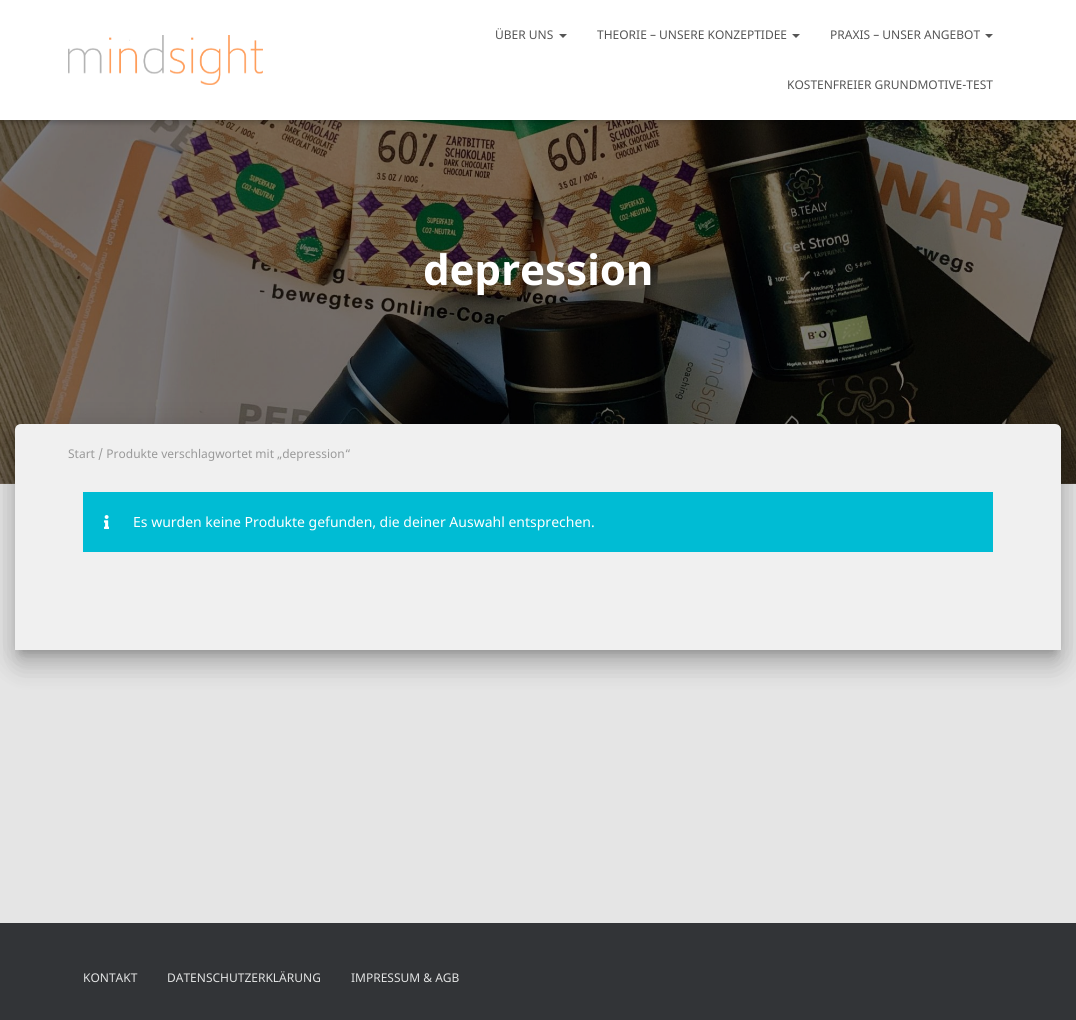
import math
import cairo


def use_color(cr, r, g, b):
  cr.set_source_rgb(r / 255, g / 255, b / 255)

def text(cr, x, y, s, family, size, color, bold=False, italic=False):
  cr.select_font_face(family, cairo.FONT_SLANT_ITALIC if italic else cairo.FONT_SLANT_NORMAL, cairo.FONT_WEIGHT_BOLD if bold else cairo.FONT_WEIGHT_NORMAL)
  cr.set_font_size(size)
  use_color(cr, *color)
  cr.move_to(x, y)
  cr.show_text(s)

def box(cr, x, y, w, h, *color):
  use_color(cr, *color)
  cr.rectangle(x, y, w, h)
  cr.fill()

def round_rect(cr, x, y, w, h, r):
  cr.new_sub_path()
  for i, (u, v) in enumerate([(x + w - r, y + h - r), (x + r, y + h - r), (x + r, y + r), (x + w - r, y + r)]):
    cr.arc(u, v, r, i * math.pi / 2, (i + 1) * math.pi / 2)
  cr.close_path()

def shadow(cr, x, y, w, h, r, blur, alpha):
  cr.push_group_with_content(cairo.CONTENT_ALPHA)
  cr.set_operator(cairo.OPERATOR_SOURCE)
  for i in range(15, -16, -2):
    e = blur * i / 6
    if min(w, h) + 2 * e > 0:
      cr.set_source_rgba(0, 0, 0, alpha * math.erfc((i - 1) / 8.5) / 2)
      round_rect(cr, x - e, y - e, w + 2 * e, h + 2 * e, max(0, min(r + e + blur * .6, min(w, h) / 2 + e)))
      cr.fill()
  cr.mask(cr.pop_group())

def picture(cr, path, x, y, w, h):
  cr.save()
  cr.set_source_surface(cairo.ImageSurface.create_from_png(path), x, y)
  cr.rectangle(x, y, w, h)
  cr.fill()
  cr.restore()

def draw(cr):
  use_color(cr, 229, 229, 229)
  cr.paint()
  picture(cr, "img_02.png", 0, 120, 1076, 364)
  use_color(cr, 0, 0, 0)
  shadow(cr, 2, 6, 1072, 116, 0, 2.5, 0.1)
  shadow(cr, 0, 1, 1076, 120, 0, 5, 0.12)
  shadow(cr, 6, 7, 1064, 108, 0, 5, 0.42)
  box(cr, 0, 0, 1076, 120, 255, 255, 255)
  picture(cr, "img_01.png", 68, 35, 195, 50)
  use_color(cr, 85, 85, 85)
  cr.new_path()
  cr.move_to(559, 34)
  cr.line_to(567, 34)
  cr.line_to(563, 38)
  cr.close_path()
  cr.fill()
  cr.new_path()
  cr.move_to(792, 34)
  cr.line_to(800, 34)
  cr.line_to(796, 38)
  cr.close_path()
  cr.fill()
  cr.new_path()
  cr.move_to(985, 34)
  cr.line_to(993, 34)
  cr.line_to(989, 38)
  cr.close_path()
  cr.fill()
  use_color(cr, 0, 0, 0)
  shadow(cr, 20, 437, 1036, 216, 1, 5, 0.2)
  shadow(cr, 10, 425, 1056, 236, 11, 15, 0.12)
  shadow(cr, 13, 438, 1050, 230, 8, 12, 0.14)
  use_color(cr, 240, 240, 240)
  cr.new_path()
  cr.move_to(21, 424)
  cr.line_to(1055, 424)
  cr.curve_to(1058.5, 424, 1061, 426.5, 1061, 430)
  cr.line_to(1061, 650)
  cr.line_to(15, 650)
  cr.line_to(15, 430)
  cr.curve_to(15, 426.5, 17.5, 424, 21, 424)
  cr.close_path()
  cr.fill()
  box(cr, 83, 492, 910, 60, 0, 188, 212)
  picture(cr, "img_03.png", 104, 515, 5, 14)
  box(cr, 0, 923, 1076, 97, 50, 52, 55)
  text(cr, 495, 39, "ÜBER UNS", "Noto Sans", 12, (85, 85, 85))
  text(cr, 597, 39, "THEORIE – UNSERE KONZEPTIDEE", "Noto Sans", 12, (85, 85, 85))
  text(cr, 830, 39, "PRAXIS – UNSER ANGEBOT", "Noto Sans", 12, (85, 85, 85))
  text(cr, 787, 89, "KOSTENFREIER GRUNDMOTIVE-TEST", "Noto Sans", 12, (85, 85, 85))
  text(cr, 423, 285, "depression", "Noto Sans", 42, (255, 255, 255), bold=True)
  text(cr, 68, 458, "Start / Produkte verschlagwortet mit „depression“", "Noto Sans", 12, (153, 153, 153))
  text(cr, 133, 527, "Es wurden keine Produkte gefunden, die deiner Auswahl entsprechen.", "Noto Sans", 14, (255, 255, 255))
  text(cr, 83, 982, "KONTAKT", "Noto Sans", 12, (226, 227, 227))
  text(cr, 167, 982, "DATENSCHUTZERKLÄRUNG", "Noto Sans", 12, (226, 227, 227))
  text(cr, 351, 982, "IMPRESSUM & AGB", "Noto Sans", 12, (226, 227, 227))


surface = cairo.ImageSurface(cairo.FORMAT_RGB24, 1076, 1020)
cr = cairo.Context(surface)
options = cairo.FontOptions()
options.set_hint_metrics(cairo.HINT_METRICS_OFF)
options.set_hint_style(cairo.HINT_STYLE_NONE)
cr.set_font_options(options)
cr.set_miter_limit(4)
draw(cr)
surface.write_to_png("out.png")
